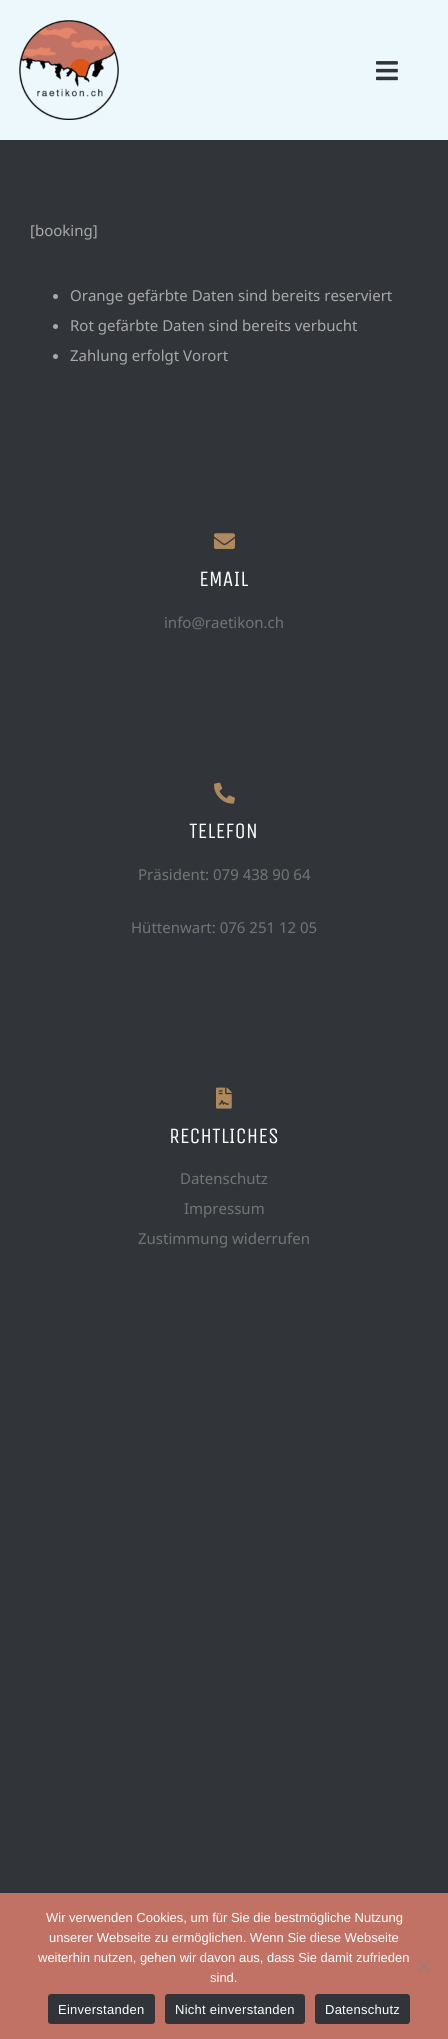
import math
import cairo


def use_color(cr, r, g, b):
  cr.set_source_rgb(r / 255, g / 255, b / 255)

def text(cr, x, y, s, family, size, color, bold=False, italic=False):
  cr.select_font_face(family, cairo.FONT_SLANT_ITALIC if italic else cairo.FONT_SLANT_NORMAL, cairo.FONT_WEIGHT_BOLD if bold else cairo.FONT_WEIGHT_NORMAL)
  cr.set_font_size(size)
  use_color(cr, *color)
  cr.move_to(x, y)
  cr.show_text(s)

def spaced_text(cr, x, y, s, letter, word):
  cr.move_to(x, y)
  for ch in s:
    cr.show_text(ch)
    cr.rel_move_to(letter + word * (ch == ' '), 0)

def box(cr, x, y, w, h, *color):
  use_color(cr, *color)
  cr.rectangle(x, y, w, h)
  cr.fill()

def round_rect(cr, x, y, w, h, r):
  cr.new_sub_path()
  for i, (u, v) in enumerate([(x + w - r, y + h - r), (x + r, y + h - r), (x + r, y + r), (x + w - r, y + r)]):
    cr.arc(u, v, r, i * math.pi / 2, (i + 1) * math.pi / 2)
  cr.close_path()

def picture(cr, path, x, y, w, h):
  cr.save()
  cr.set_source_surface(cairo.ImageSurface.create_from_png(path), x, y)
  cr.rectangle(x, y, w, h)
  cr.fill()
  cr.restore()

def draw(cr):
  use_color(cr, 49, 53, 57)
  cr.paint()
  box(cr, 0, 0, 448, 140, 237, 248, 252)
  picture(cr, "img_01.png", 19, 20, 100, 100)
  picture(cr, "img_02.png", 376, 61, 22, 20)
  use_color(cr, 170, 169, 169)
  cr.arc(55.5, 296.5, 2.5, 0, 2 * math.pi)
  cr.fill()
  cr.arc(55.5, 326.5, 2.5, 0, 2 * math.pi)
  cr.fill()
  cr.arc(55.5, 356.5, 2.5, 0, 2 * math.pi)
  cr.fill()
  picture(cr, "img_03.png", 214, 533, 21, 16)
  picture(cr, "img_04.png", 214, 782, 21, 22)
  picture(cr, "img_05.png", 216, 1087, 16, 22)
  box(cr, 0, 1893, 448, 146, 194, 114, 101)
  use_color(cr, 161, 121, 115)
  cr.new_path()
  cr.move_to(428.5, 1960.5)
  cr.line_to(430, 1962)
  cr.line_to(419.5, 1972.5)
  cr.line_to(418, 1971)
  cr.close_path()
  cr.fill()
  cr.new_path()
  cr.move_to(418, 1962)
  cr.line_to(419.5, 1960.5)
  cr.line_to(430, 1971)
  cr.line_to(428.5, 1972.5)
  cr.close_path()
  cr.fill()
  use_color(cr, 49, 53, 57)
  round_rect(cr, 48, 1994, 107, 30, 3)
  cr.fill()
  round_rect(cr, 165, 1994, 140, 30, 3)
  cr.fill()
  round_rect(cr, 315, 1994, 95, 30, 3)
  cr.fill()
  text(cr, 30, 236, "[booking]", "Noto Sans", 15, (170, 169, 169))
  text(cr, 70, 301, "Orange gefärbte Daten sind bereits reserviert", "Noto Sans", 15, (170, 169, 169))
  text(cr, 70, 331, "Rot gefärbte Daten sind bereits verbucht", "Noto Sans", 15, (170, 169, 169))
  text(cr, 70, 361, "Zahlung erfolgt Vorort", "Noto Sans", 15, (170, 169, 169))
  text(cr, 199, 586, "EMAIL", "Unica One", 22, (255, 255, 255))
  text(cr, 164, 628, "info@raetikon.ch", "Noto Sans", 15, (116, 116, 116))
  text(cr, 189, 838, "TELEFON", "Unica One", 22, (255, 255, 255))
  text(cr, 138, 880, "Präsident: 079 438 90 64", "Noto Sans", 15, (116, 116, 116))
  text(cr, 131, 933, "Hüttenwart: 076 251 12 05", "Noto Sans", 15, (116, 116, 116))
  text(cr, 169, 1143, "RECHTLICHES", "Unica One", 22, (255, 255, 255))
  text(cr, 180, 1184, "Datenschutz", "Noto Sans", 15, (116, 116, 116))
  text(cr, 184, 1214, "Impressum", "Noto Sans", 15, (116, 116, 116))
  text(cr, 138, 1244, "Zustimmung widerrufen", "Noto Sans", 15, (116, 116, 116))
  text(cr, 46, 1922, "Wir verwenden Cookies, um für Sie die bestmögliche Nutzung", "Liberation Sans", 13, (255, 255, 255))
  text(cr, 49, 1942, "unserer Webseite zu ermöglichen. Wenn Sie diese Webseite", "Liberation Sans", 13, (255, 255, 255))
  text(cr, 38, 1962, "weiterhin nutzen, gehen wir davon aus, dass Sie damit zufrieden", "Liberation Sans", 13, (255, 255, 255))
  text(cr, 210, 1982, "sind.", "Liberation Sans", 13, (255, 255, 255))
  spaced_text(cr, 58, 2014, "Einverstanden", 0.25, 0)
  spaced_text(cr, 175, 2014, "Nicht einverstanden", 0.25, 0)
  spaced_text(cr, 325, 2014, "Datenschutz", 0.25, 0)


surface = cairo.ImageSurface(cairo.FORMAT_RGB24, 448, 2039)
cr = cairo.Context(surface)
options = cairo.FontOptions()
options.set_hint_metrics(cairo.HINT_METRICS_OFF)
options.set_hint_style(cairo.HINT_STYLE_NONE)
cr.set_font_options(options)
cr.set_miter_limit(4)
draw(cr)
surface.write_to_png("out.png")
